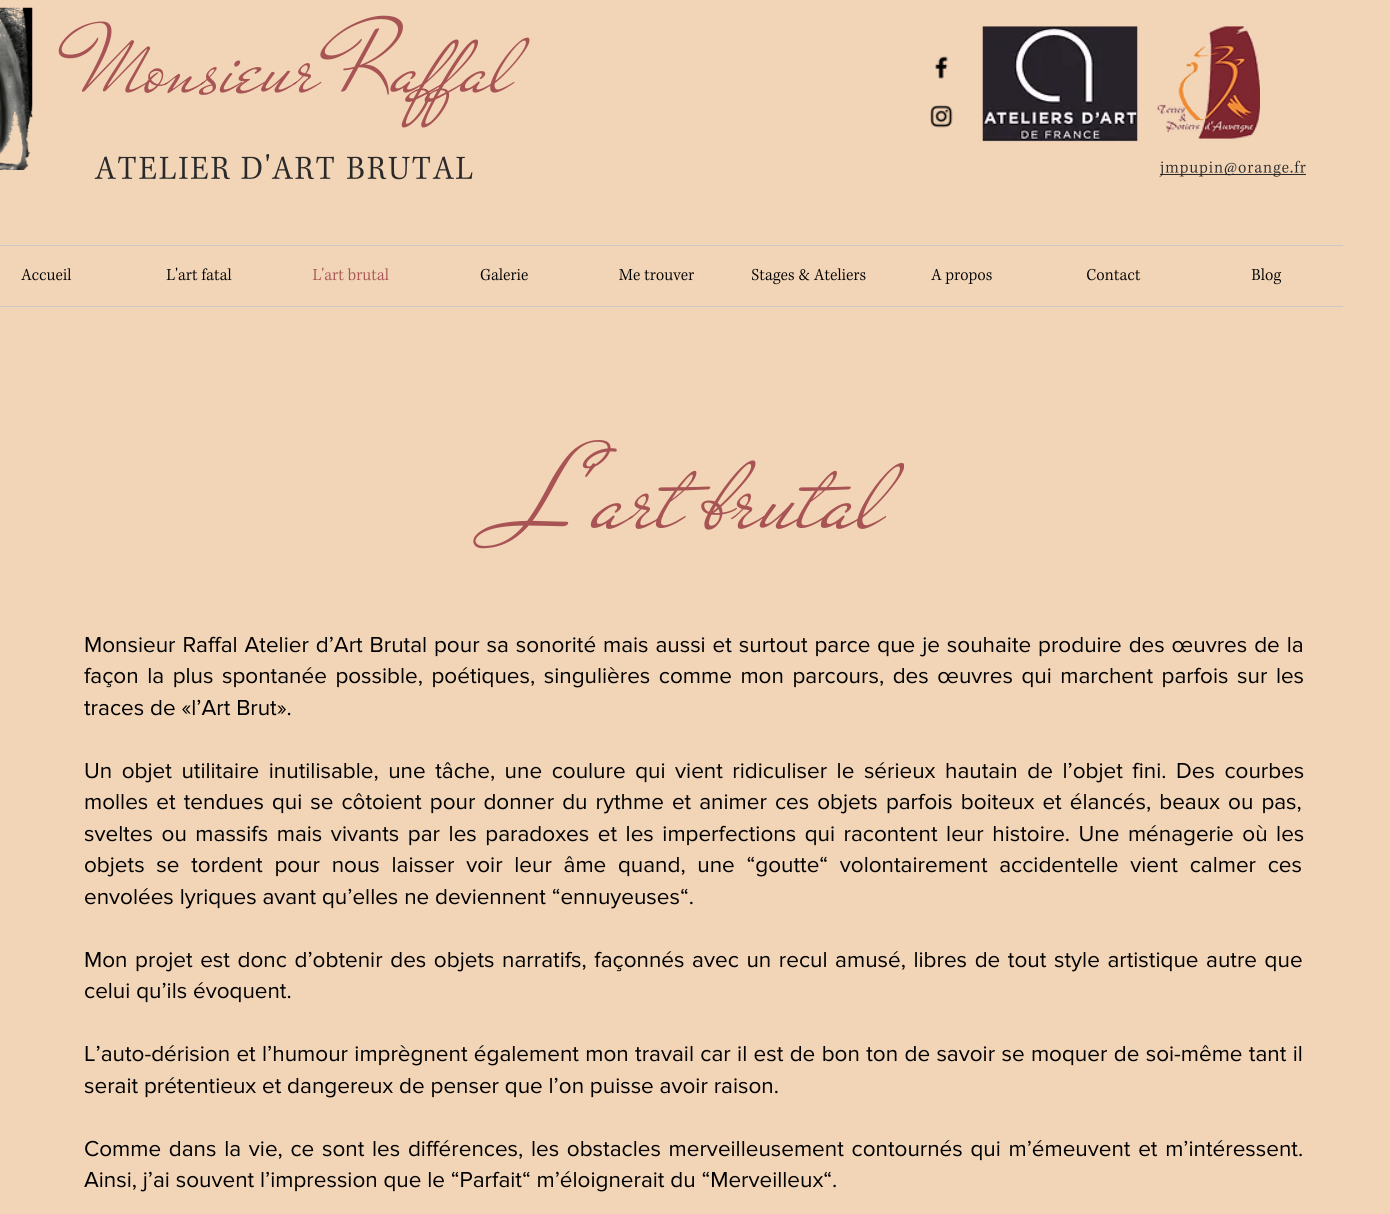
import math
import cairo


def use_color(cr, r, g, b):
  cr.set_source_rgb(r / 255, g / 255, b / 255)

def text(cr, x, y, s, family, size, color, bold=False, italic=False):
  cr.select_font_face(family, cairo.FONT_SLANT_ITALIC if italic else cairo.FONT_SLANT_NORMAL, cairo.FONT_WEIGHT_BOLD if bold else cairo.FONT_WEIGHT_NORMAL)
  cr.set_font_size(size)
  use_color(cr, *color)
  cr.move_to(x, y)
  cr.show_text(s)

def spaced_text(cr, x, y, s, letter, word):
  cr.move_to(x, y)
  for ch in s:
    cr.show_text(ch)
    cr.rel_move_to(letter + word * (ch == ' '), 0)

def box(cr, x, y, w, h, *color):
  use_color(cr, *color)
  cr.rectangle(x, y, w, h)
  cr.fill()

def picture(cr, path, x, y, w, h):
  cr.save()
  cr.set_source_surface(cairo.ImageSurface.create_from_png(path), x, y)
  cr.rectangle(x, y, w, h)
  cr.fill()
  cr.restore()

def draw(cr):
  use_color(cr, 242, 212, 182)
  cr.paint()
  picture(cr, "img_01.png", 0, 7, 33, 163)
  picture(cr, "img_02.png", 935, 56, 13, 23)
  picture(cr, "img_03.png", 930, 105, 23, 23)
  picture(cr, "img_04.png", 982, 26, 156, 116)
  picture(cr, "img_05.png", 1157, 26, 103, 113)
  picture(cr, "img_06.png", 94, 154, 379, 26)
  box(cr, 1160, 174, 146, 1, 41, 41, 41)
  picture(cr, "img_07.png", 1159, 160, 147, 17)
  box(cr, 0, 245, 1343, 1, 202, 202, 202)
  box(cr, 0, 306, 1343, 1, 202, 202, 202)
  picture(cr, "img_08.png", 21, 268, 51, 13)
  picture(cr, "img_09.png", 166, 267, 66, 14)
  picture(cr, "img_10.png", 312, 267, 77, 14)
  picture(cr, "img_11.png", 480, 268, 48, 13)
  picture(cr, "img_12.png", 619, 269, 75, 12)
  picture(cr, "img_13.png", 752, 268, 114, 17)
  picture(cr, "img_14.png", 931, 268, 61, 16)
  picture(cr, "img_15.png", 1087, 268, 54, 13)
  picture(cr, "img_16.png", 1251, 268, 31, 17)
  text(cr, 83, 91, "Monsieur Raffal", "Mr De Haviland", 100, (168, 84, 84))
  text(cr, 510, 527, "L'art brutal", "Mr De Haviland", 120, (168, 84, 84))
  cr.select_font_face("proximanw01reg")
  cr.set_font_size(22.5)
  use_color(cr, 0, 0, 0)
  spaced_text(cr, 84, 652, "Monsieur Raffal Atelier d’Art Brutal pour sa sonorité mais aussi et surtout parce que je souhaite produire des œuvres de la", 0, 1.1)
  spaced_text(cr, 84, 683, "façon la plus spontanée possible, poétiques, singulières comme mon parcours, des œuvres qui marchent parfois sur les", 0, 2.75)
  text(cr, 84, 715, "traces de «l’Art Brut».", "proximanw01reg", 22.5, (0, 0, 0))
  spaced_text(cr, 84, 778, "Un objet utilitaire inutilisable, une tâche, une coulure qui vient ridiculiser le sérieux hautain de l’objet fini. Des courbes", 0, 3.75)
  spaced_text(cr, 84, 809, "molles et tendues qui se côtoient pour donner du rythme et animer ces objets parfois boiteux et élancés, beaux ou pas,", 0, 2.25)
  spaced_text(cr, 84, 841, "sveltes ou massifs mais vivants par les paradoxes et les imperfections qui racontent leur histoire. Une ménagerie où les", 0, 2.75)
  spaced_text(cr, 84, 872, "objets se tordent pour nous laisser voir leur âme quand, une “goutte“ volontairement accidentelle vient calmer ces", 0, 5.9)
  text(cr, 84, 904, "envolées lyriques avant qu’elles ne deviennent “ennuyeuses“.", "proximanw01reg", 22.5, (0, 0, 0))
  spaced_text(cr, 84, 967, "Mon projet est donc d’obtenir des objets narratifs, façonnés avec un recul amusé, libres de tout style artistique autre que", 0, 1.8)
  text(cr, 84, 998, "celui qu’ils évoquent.", "proximanw01reg", 22.5, (0, 0, 0))
  spaced_text(cr, 84, 1061, "L’auto-dérision et l’humour imprègnent également mon travail car il est de bon ton de savoir se moquer de soi-même tant il", 0, 0.55)
  text(cr, 84, 1093, "serait prétentieux et dangereux de penser que l’on puisse avoir raison.", "proximanw01reg", 22.5, (0, 0, 0))
  spaced_text(cr, 84, 1156, "Comme dans la vie, ce sont les différences, les obstacles merveilleusement contournés qui m’émeuvent et m’intéressent.", 0, 1.9)
  text(cr, 84, 1187, "Ainsi, j’ai souvent l’impression que le “Parfait“ m’éloignerait du “Merveilleux“.", "proximanw01reg", 22.5, (0, 0, 0))


surface = cairo.ImageSurface(cairo.FORMAT_RGB24, 1390, 1214)
cr = cairo.Context(surface)
options = cairo.FontOptions()
options.set_hint_metrics(cairo.HINT_METRICS_OFF)
options.set_hint_style(cairo.HINT_STYLE_NONE)
cr.set_font_options(options)
cr.set_miter_limit(4)
draw(cr)
surface.write_to_png("out.png")
